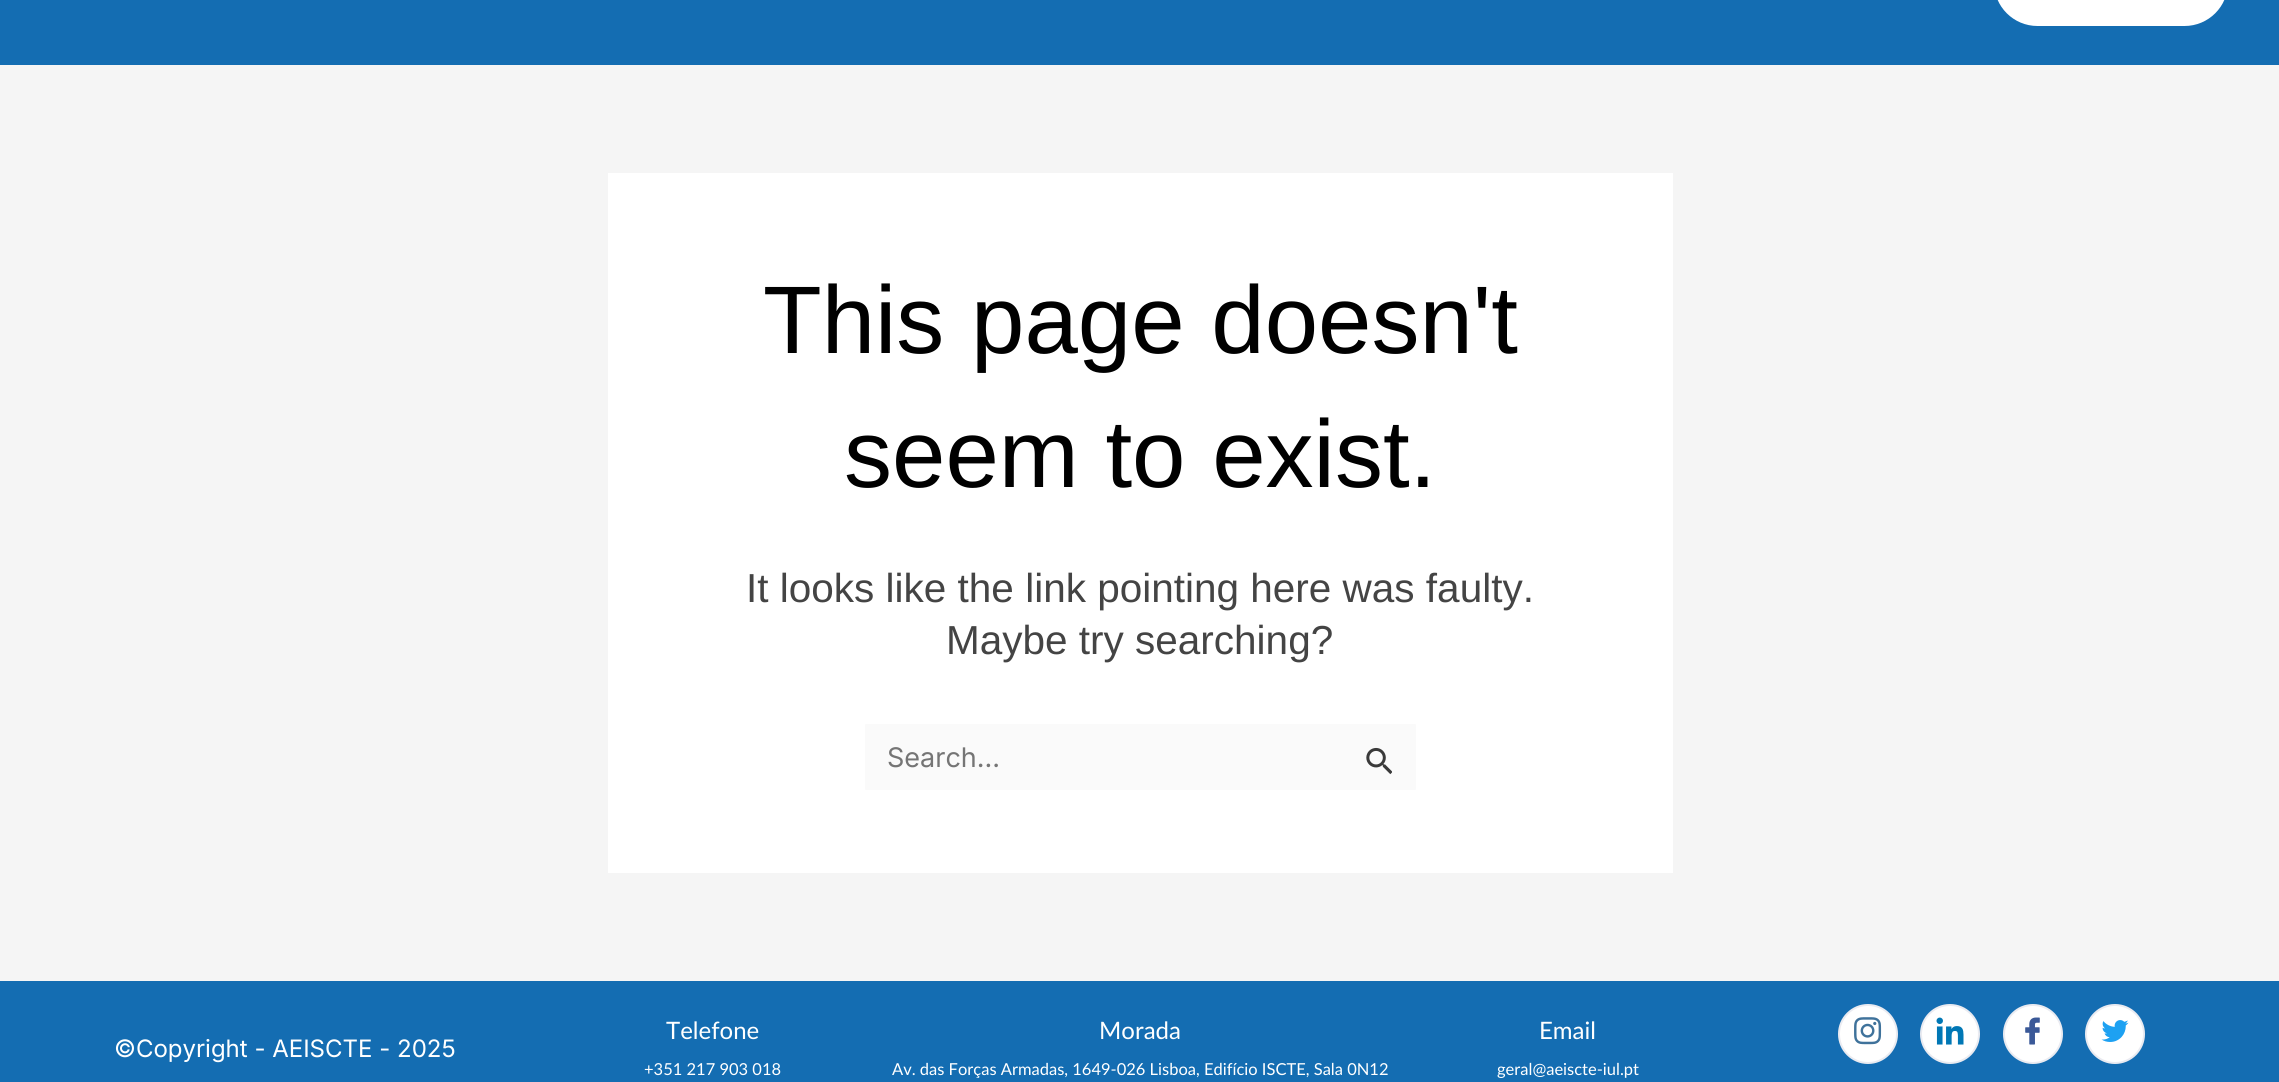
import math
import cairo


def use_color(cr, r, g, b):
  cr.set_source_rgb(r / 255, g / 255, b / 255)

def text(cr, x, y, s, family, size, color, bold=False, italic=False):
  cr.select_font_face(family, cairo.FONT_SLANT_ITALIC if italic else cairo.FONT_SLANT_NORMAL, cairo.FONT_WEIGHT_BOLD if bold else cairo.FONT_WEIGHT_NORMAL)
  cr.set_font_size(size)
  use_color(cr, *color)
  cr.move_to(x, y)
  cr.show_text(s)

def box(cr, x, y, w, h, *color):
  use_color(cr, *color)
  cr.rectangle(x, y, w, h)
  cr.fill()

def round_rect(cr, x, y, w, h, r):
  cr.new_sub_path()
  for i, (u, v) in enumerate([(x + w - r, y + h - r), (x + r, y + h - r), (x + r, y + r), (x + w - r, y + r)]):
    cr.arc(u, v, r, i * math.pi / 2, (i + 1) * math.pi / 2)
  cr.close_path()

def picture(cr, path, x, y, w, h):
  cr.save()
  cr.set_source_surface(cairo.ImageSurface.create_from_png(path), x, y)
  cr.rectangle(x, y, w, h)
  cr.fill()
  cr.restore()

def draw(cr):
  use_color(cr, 245, 245, 245)
  cr.paint()
  box(cr, 0, 0, 2279, 65, 20, 109, 178)
  use_color(cr, 255, 255, 255)
  round_rect(cr, 1994, -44, 234, 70, 43.5)
  cr.fill()
  box(cr, 608, 173, 1065, 700, 255, 255, 255)
  use_color(cr, 250, 250, 250)
  round_rect(cr, 864, 723, 553, 68, 2)
  cr.fill_preserve()
  use_color(cr, 255, 255, 255)
  cr.stroke()
  picture(cr, "img_01.png", 1366, 747, 26, 28)
  box(cr, 0, 981, 2279, 101, 20, 109, 178)
  use_color(cr, 255, 255, 255)
  cr.arc(1868, 1034, 29, 0, 2 * math.pi)
  cr.fill_preserve()
  use_color(cr, 234, 235, 241)
  cr.stroke()
  picture(cr, "img_02.png", 1854, 1017, 28, 28)
  use_color(cr, 255, 255, 255)
  cr.arc(1950, 1034, 29, 0, 2 * math.pi)
  cr.fill_preserve()
  use_color(cr, 234, 235, 241)
  cr.stroke()
  picture(cr, "img_03.png", 1936, 1017, 28, 28)
  use_color(cr, 255, 255, 255)
  cr.arc(2033, 1034, 29, 0, 2 * math.pi)
  cr.fill_preserve()
  use_color(cr, 234, 235, 241)
  cr.stroke()
  picture(cr, "img_04.png", 2025, 1017, 15, 28)
  use_color(cr, 255, 255, 255)
  cr.arc(2115, 1034, 29, 0, 2 * math.pi)
  cr.fill_preserve()
  use_color(cr, 234, 235, 241)
  cr.stroke()
  picture(cr, "img_05.png", 2101, 1020, 28, 22)
  text(cr, 763, 353, "This page doesn't", "Liberation Sans", 96, (0, 0, 0))
  text(cr, 844, 487, "seem to exist.", "Liberation Sans", 96, (0, 0, 0))
  text(cr, 746, 602, "It looks like the link pointing here was faulty.", "Liberation Sans", 40.5, (68, 68, 68))
  text(cr, 946, 654, "Maybe try searching?", "Liberation Sans", 40.5, (68, 68, 68))
  text(cr, 887, 767, "Search...", "Inter", 27, (117, 117, 117))
  text(cr, 114, 1057, "©Copyright - AEISCTE - 2025", "Inter", 24, (255, 255, 255))
  text(cr, 666, 1039, "Telefone", "Lato", 24, (255, 255, 255))
  text(cr, 644, 1075, "+351 217 903 018", "Lato", 16.5, (255, 255, 255))
  text(cr, 1099, 1039, "Morada", "Lato", 24, (255, 255, 255))
  text(cr, 892, 1075, "Av. das Forças Armadas, 1649-026 Lisboa, Edifício ISCTE, Sala 0N12", "Lato", 16.5, (255, 255, 255))
  text(cr, 1539, 1039, "Email", "Lato", 24, (255, 255, 255))
  text(cr, 1497, 1075, "geral@aeiscte-iul.pt", "Lato", 16.5, (255, 255, 255))


surface = cairo.ImageSurface(cairo.FORMAT_RGB24, 2279, 1082)
cr = cairo.Context(surface)
options = cairo.FontOptions()
options.set_hint_metrics(cairo.HINT_METRICS_OFF)
options.set_hint_style(cairo.HINT_STYLE_NONE)
cr.set_font_options(options)
cr.set_miter_limit(4)
draw(cr)
surface.write_to_png("out.png")
